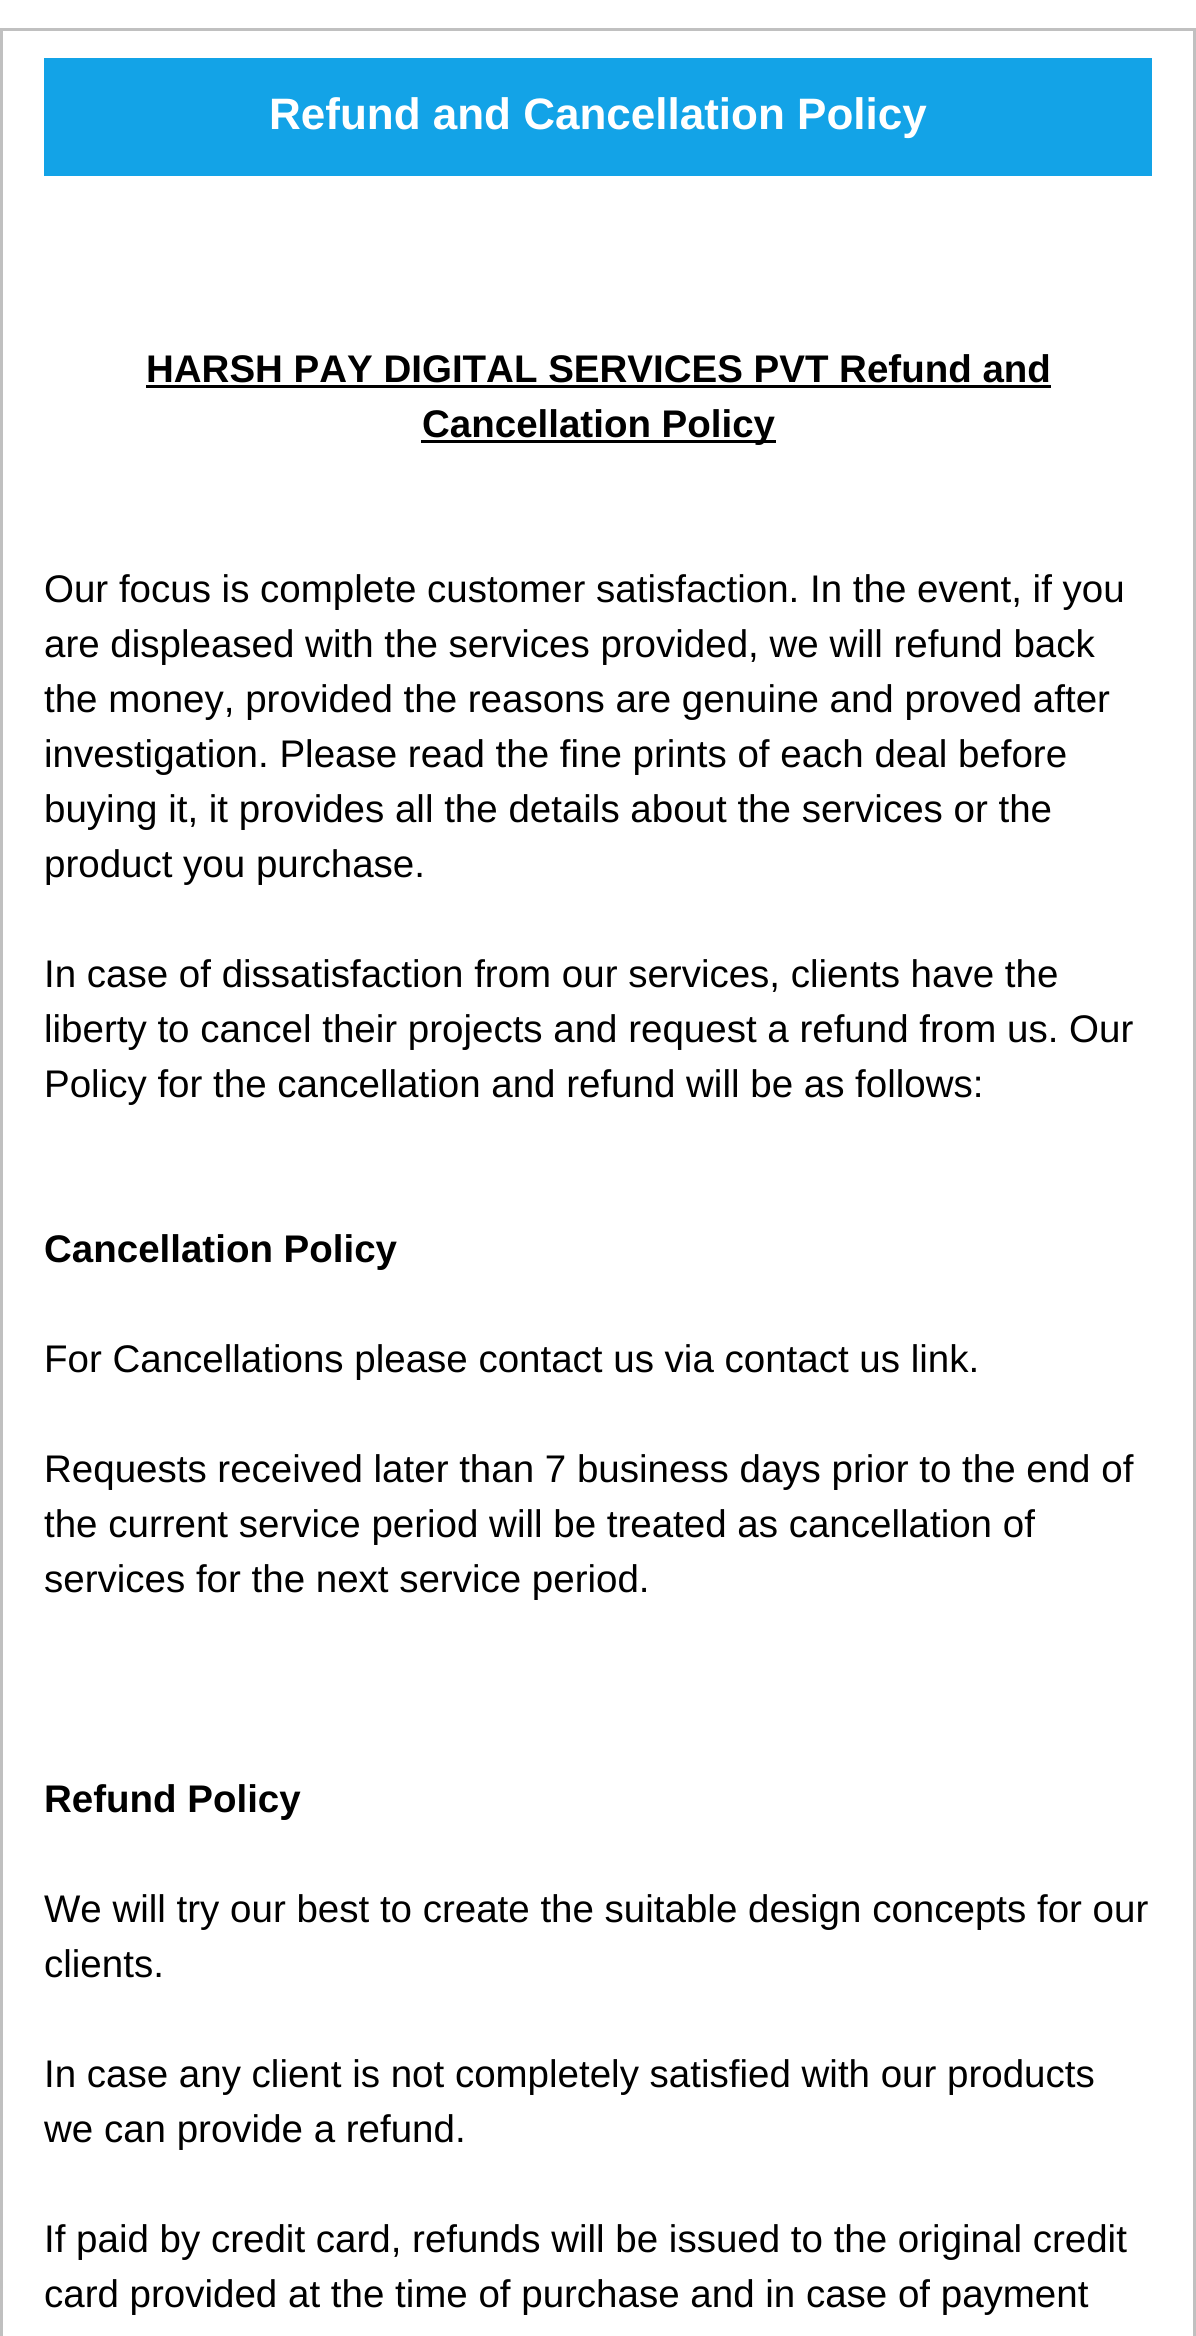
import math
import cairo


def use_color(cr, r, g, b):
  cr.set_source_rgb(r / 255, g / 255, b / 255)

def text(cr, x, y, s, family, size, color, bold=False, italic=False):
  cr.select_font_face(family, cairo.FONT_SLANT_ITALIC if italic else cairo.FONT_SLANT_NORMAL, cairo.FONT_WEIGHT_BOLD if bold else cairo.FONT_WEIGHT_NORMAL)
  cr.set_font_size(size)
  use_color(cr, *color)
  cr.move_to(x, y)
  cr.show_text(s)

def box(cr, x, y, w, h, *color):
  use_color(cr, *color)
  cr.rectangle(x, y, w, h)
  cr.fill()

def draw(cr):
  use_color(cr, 255, 255, 255)
  cr.paint()
  cr.rectangle(1.5, 29.5, 1193, 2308)
  use_color(cr, 192, 192, 192)
  cr.set_line_width(3)
  cr.stroke()
  box(cr, 44, 58, 1108, 118, 19, 163, 231)
  box(cr, 146, 385, 905, 3, 0, 0, 0)
  box(cr, 421, 440, 355, 3, 0, 0, 0)
  text(cr, 269, 129, "Refund and Cancellation Policy", "Liberation Sans", 44, (255, 255, 255), bold=True)
  text(cr, 146, 382, "HARSH PAY DIGITAL SERVICES PVT Refund and", "Liberation Sans", 38.5, (0, 0, 0), bold=True)
  text(cr, 422, 437, "Cancellation Policy", "Liberation Sans", 38.5, (0, 0, 0), bold=True)
  text(cr, 44, 602, "Our focus is complete customer satisfaction. In the event, if you", "Liberation Sans", 38.5, (0, 0, 0))
  text(cr, 44, 657, "are displeased with the services provided, we will refund back", "Liberation Sans", 38.5, (0, 0, 0))
  text(cr, 44, 712, "the money, provided the reasons are genuine and proved after", "Liberation Sans", 38.5, (0, 0, 0))
  text(cr, 44, 767, "investigation. Please read the fine prints of each deal before", "Liberation Sans", 38.5, (0, 0, 0))
  text(cr, 44, 822, "buying it, it provides all the details about the services or the", "Liberation Sans", 38.5, (0, 0, 0))
  text(cr, 44, 877, "product you purchase.", "Liberation Sans", 38.5, (0, 0, 0))
  text(cr, 44, 987, "In case of dissatisfaction from our services, clients have the", "Liberation Sans", 38.5, (0, 0, 0))
  text(cr, 44, 1042, "liberty to cancel their projects and request a refund from us. Our", "Liberation Sans", 38.5, (0, 0, 0))
  text(cr, 44, 1097, "Policy for the cancellation and refund will be as follows:", "Liberation Sans", 38.5, (0, 0, 0))
  text(cr, 44, 1262, "Cancellation Policy", "Liberation Sans", 38.5, (0, 0, 0), bold=True)
  text(cr, 44, 1372, "For Cancellations please contact us via contact us link.", "Liberation Sans", 38.5, (0, 0, 0))
  text(cr, 44, 1482, "Requests received later than 7 business days prior to the end of", "Liberation Sans", 38.5, (0, 0, 0))
  text(cr, 44, 1537, "the current service period will be treated as cancellation of", "Liberation Sans", 38.5, (0, 0, 0))
  text(cr, 44, 1592, "services for the next service period.", "Liberation Sans", 38.5, (0, 0, 0))
  text(cr, 44, 1812, "Refund Policy", "Liberation Sans", 38.5, (0, 0, 0), bold=True)
  text(cr, 44, 1922, "We will try our best to create the suitable design concepts for our", "Liberation Sans", 38.5, (0, 0, 0))
  text(cr, 44, 1977, "clients.", "Liberation Sans", 38.5, (0, 0, 0))
  text(cr, 44, 2087, "In case any client is not completely satisfied with our products", "Liberation Sans", 38.5, (0, 0, 0))
  text(cr, 44, 2142, "we can provide a refund.", "Liberation Sans", 38.5, (0, 0, 0))
  text(cr, 44, 2252, "If paid by credit card, refunds will be issued to the original credit", "Liberation Sans", 38.5, (0, 0, 0))
  text(cr, 44, 2307, "card provided at the time of purchase and in case of payment", "Liberation Sans", 38.5, (0, 0, 0))


surface = cairo.ImageSurface(cairo.FORMAT_RGB24, 1196, 2336)
cr = cairo.Context(surface)
options = cairo.FontOptions()
options.set_hint_metrics(cairo.HINT_METRICS_OFF)
options.set_hint_style(cairo.HINT_STYLE_NONE)
cr.set_font_options(options)
cr.set_miter_limit(4)
draw(cr)
surface.write_to_png("out.png")
